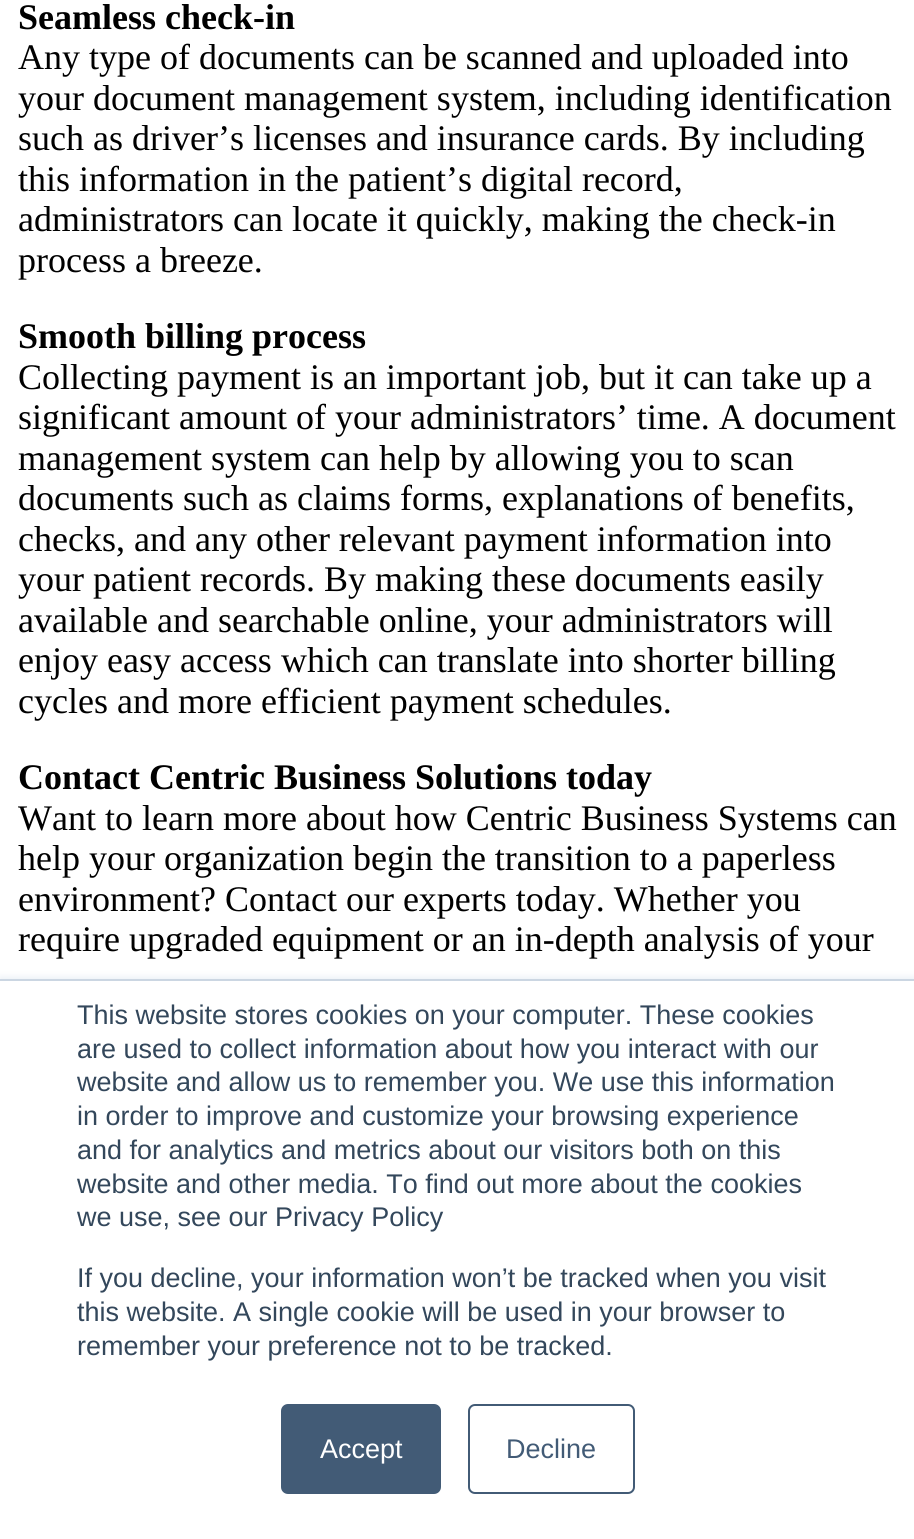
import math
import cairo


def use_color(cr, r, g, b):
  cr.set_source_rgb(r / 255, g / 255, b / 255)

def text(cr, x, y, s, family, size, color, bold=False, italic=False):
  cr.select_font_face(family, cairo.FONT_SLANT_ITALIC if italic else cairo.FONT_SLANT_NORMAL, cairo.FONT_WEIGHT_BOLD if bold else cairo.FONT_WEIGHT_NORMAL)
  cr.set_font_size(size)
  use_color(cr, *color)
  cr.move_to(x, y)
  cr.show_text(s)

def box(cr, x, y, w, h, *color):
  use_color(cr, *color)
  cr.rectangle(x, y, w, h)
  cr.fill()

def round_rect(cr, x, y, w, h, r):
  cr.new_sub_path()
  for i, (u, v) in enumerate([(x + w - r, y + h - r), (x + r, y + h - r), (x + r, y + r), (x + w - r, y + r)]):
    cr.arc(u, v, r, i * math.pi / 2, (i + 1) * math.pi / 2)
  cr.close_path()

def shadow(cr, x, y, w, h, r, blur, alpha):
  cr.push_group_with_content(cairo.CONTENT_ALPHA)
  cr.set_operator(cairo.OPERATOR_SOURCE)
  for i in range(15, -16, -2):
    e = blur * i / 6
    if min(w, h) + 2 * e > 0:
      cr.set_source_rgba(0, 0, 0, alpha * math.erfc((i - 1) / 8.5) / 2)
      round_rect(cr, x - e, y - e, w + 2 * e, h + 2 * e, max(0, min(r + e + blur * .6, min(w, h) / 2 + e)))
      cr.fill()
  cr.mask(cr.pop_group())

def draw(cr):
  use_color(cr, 255, 255, 255)
  cr.paint()
  use_color(cr, 234, 240, 246)
  shadow(cr, 0, 977, 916, 560, 0, 3.5, 1)
  box(cr, 0, 981, 914, 558, 255, 255, 255)
  box(cr, 0, 979, 914, 2, 203, 214, 226)
  use_color(cr, 66, 91, 118)
  round_rect(cr, 282, 1405, 158, 88, 6)
  cr.fill_preserve()
  cr.stroke()
  round_rect(cr, 469, 1405, 165, 88, 6)
  cr.stroke()
  text(cr, 18, 29, "Seamless check-in", "Liberation Serif", 36, (0, 0, 0), bold=True)
  text(cr, 18, 69, "Any type of documents can be scanned and uploaded into", "Liberation Serif", 36, (0, 0, 0))
  text(cr, 18, 110, "your document management system, including identification", "Liberation Serif", 36, (0, 0, 0))
  text(cr, 18, 150, "such as driver’s licenses and insurance cards. By including", "Liberation Serif", 36, (0, 0, 0))
  text(cr, 18, 191, "this information in the patient’s digital record,", "Liberation Serif", 36, (0, 0, 0))
  text(cr, 18, 231, "administrators can locate it quickly, making the check-in", "Liberation Serif", 36, (0, 0, 0))
  text(cr, 18, 272, "process a breeze.", "Liberation Serif", 36, (0, 0, 0))
  text(cr, 18, 348, "Smooth billing process", "Liberation Serif", 36, (0, 0, 0), bold=True)
  text(cr, 18, 389, "Collecting payment is an important job, but it can take up a", "Liberation Serif", 36, (0, 0, 0))
  text(cr, 18, 429, "significant amount of your administrators’ time. A document", "Liberation Serif", 36, (0, 0, 0))
  text(cr, 18, 470, "management system can help by allowing you to scan", "Liberation Serif", 36, (0, 0, 0))
  text(cr, 18, 510, "documents such as claims forms, explanations of benefits,", "Liberation Serif", 36, (0, 0, 0))
  text(cr, 18, 551, "checks, and any other relevant payment information into", "Liberation Serif", 36, (0, 0, 0))
  text(cr, 18, 591, "your patient records. By making these documents easily", "Liberation Serif", 36, (0, 0, 0))
  text(cr, 18, 632, "available and searchable online, your administrators will", "Liberation Serif", 36, (0, 0, 0))
  text(cr, 18, 672, "enjoy easy access which can translate into shorter billing", "Liberation Serif", 36, (0, 0, 0))
  text(cr, 18, 713, "cycles and more efficient payment schedules.", "Liberation Serif", 36, (0, 0, 0))
  text(cr, 18, 789, "Contact Centric Business Solutions today", "Liberation Serif", 36, (0, 0, 0), bold=True)
  text(cr, 18, 830, "Want to learn more about how Centric Business Systems can", "Liberation Serif", 36, (0, 0, 0))
  text(cr, 18, 870, "help your organization begin the transition to a paperless", "Liberation Serif", 36, (0, 0, 0))
  text(cr, 18, 911, "environment? Contact our experts today. Whether you", "Liberation Serif", 36, (0, 0, 0))
  text(cr, 18, 951, "require upgraded equipment or an in-depth analysis of your", "Liberation Serif", 36, (0, 0, 0))
  text(cr, 77, 1024, "This website stores cookies on your computer. These cookies", "Liberation Sans", 27, (51, 71, 91))
  text(cr, 77, 1058, "are used to collect information about how you interact with our", "Liberation Sans", 27, (51, 71, 91))
  text(cr, 77, 1091, "website and allow us to remember you. We use this information", "Liberation Sans", 27, (51, 71, 91))
  text(cr, 77, 1125, "in order to improve and customize your browsing experience", "Liberation Sans", 27, (51, 71, 91))
  text(cr, 77, 1159, "and for analytics and metrics about our visitors both on this", "Liberation Sans", 27, (51, 71, 91))
  text(cr, 77, 1193, "website and other media. To find out more about the cookies", "Liberation Sans", 27, (51, 71, 91))
  text(cr, 77, 1226, "we use, see our Privacy Policy", "Liberation Sans", 27, (51, 71, 91))
  text(cr, 77, 1287, "If you decline, your information won’t be tracked when you visit", "Liberation Sans", 27, (51, 71, 91))
  text(cr, 77, 1321, "this website. A single cookie will be used in your browser to", "Liberation Sans", 27, (51, 71, 91))
  text(cr, 77, 1355, "remember your preference not to be tracked.", "Liberation Sans", 27, (51, 71, 91))
  text(cr, 320, 1458, "Accept", "Liberation Sans", 27, (255, 255, 255))
  text(cr, 506, 1458, "Decline", "Liberation Sans", 27, (66, 91, 118))


surface = cairo.ImageSurface(cairo.FORMAT_RGB24, 914, 1539)
cr = cairo.Context(surface)
options = cairo.FontOptions()
options.set_hint_metrics(cairo.HINT_METRICS_OFF)
options.set_hint_style(cairo.HINT_STYLE_NONE)
cr.set_font_options(options)
cr.set_miter_limit(4)
draw(cr)
surface.write_to_png("out.png")
